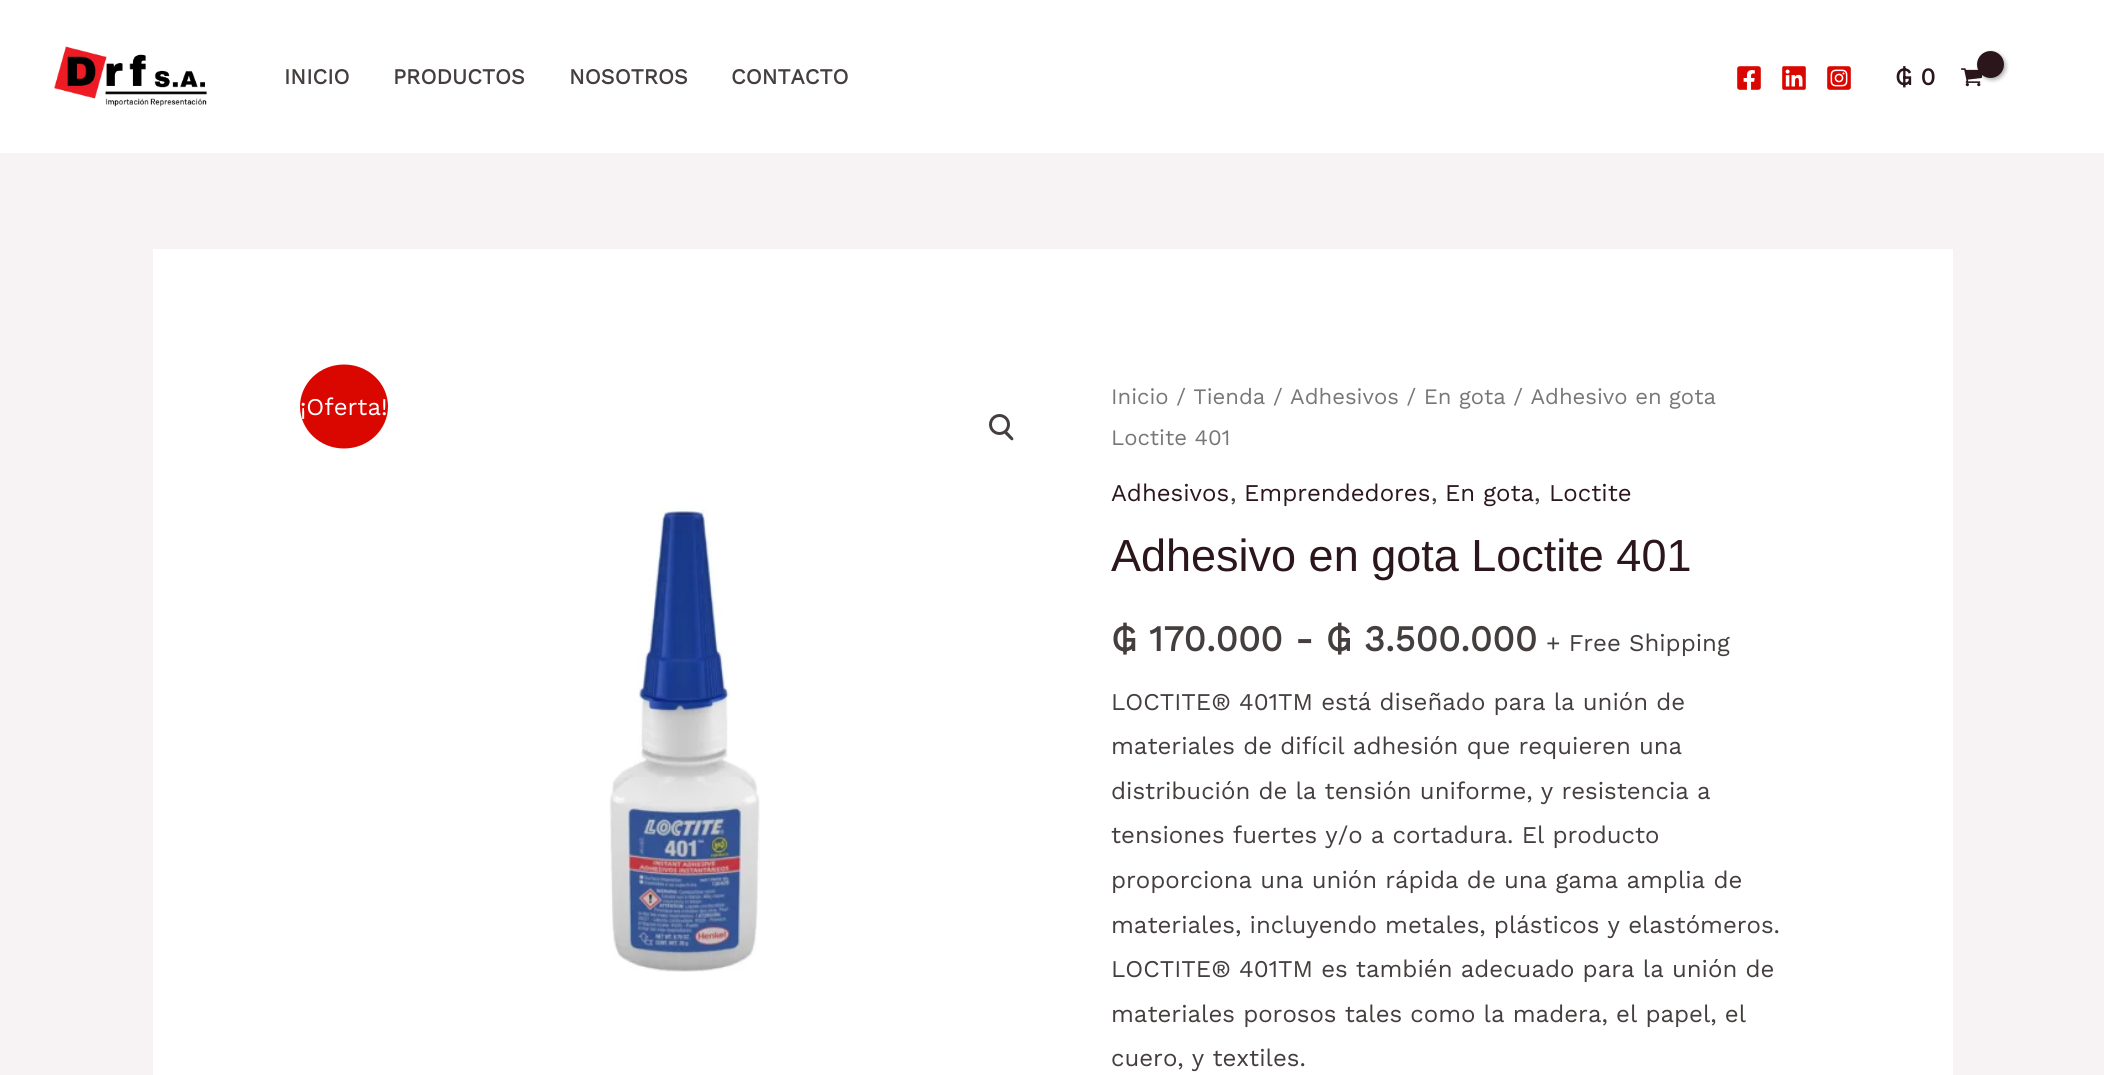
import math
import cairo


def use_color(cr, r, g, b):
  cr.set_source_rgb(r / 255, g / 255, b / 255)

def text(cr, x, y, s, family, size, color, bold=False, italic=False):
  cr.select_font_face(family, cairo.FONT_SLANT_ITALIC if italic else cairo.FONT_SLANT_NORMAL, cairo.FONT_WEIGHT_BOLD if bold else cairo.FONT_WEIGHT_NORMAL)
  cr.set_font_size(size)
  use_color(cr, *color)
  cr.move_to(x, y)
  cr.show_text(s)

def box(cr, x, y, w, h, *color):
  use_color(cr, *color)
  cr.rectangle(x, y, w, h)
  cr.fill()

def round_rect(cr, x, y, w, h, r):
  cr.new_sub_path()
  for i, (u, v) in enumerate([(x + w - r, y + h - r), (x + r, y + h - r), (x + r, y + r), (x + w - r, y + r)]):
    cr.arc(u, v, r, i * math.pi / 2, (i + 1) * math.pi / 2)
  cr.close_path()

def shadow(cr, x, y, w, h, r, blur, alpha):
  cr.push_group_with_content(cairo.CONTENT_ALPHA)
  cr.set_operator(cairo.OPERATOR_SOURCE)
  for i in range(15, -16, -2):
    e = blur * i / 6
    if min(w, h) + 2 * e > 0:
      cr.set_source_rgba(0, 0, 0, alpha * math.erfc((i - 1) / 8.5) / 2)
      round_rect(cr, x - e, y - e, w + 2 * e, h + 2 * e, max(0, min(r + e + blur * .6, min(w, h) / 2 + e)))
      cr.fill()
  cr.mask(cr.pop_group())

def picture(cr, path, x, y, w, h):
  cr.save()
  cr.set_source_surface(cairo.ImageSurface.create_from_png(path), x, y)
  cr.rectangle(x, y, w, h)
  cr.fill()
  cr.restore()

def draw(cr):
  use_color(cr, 247, 243, 245)
  cr.paint()
  box(cr, 0, 0, 2104, 153, 255, 255, 255)
  picture(cr, "img_01.png", 54, 46, 153, 61)
  picture(cr, "img_02.png", 1737, 66, 24, 24)
  picture(cr, "img_03.png", 1782, 66, 24, 24)
  picture(cr, "img_04.png", 1827, 66, 24, 24)
  picture(cr, "img_05.png", 1961, 68, 22, 19)
  use_color(cr, 0, 0, 0)
  shadow(cr, 1979, 53, 27, 27, 13.5, 2, 0.3)
  use_color(cr, 43, 22, 27)
  cr.arc(1990.5, 64.5, 13.5, 0, 2 * math.pi)
  cr.fill()
  box(cr, 153, 249, 1800, 826, 255, 255, 255)
  use_color(cr, 217, 7, 0)
  cr.new_path()
  cr.move_to(344, 364.5)
  cr.curve_to(368.5, 364.5, 388, 383.5, 388, 406.5)
  cr.curve_to(388, 429.5, 368.5, 448.5, 344, 448.5)
  cr.curve_to(319.5, 448.5, 300, 429.5, 300, 406.5)
  cr.curve_to(300, 383.5, 319.5, 364.5, 344, 364.5)
  cr.close_path()
  cr.fill()
  cr.arc(999.5, 424.5, 9, 0, 2 * math.pi)
  use_color(cr, 69, 62, 62)
  cr.set_line_width(3)
  cr.stroke()
  cr.new_path()
  cr.move_to(1004.5, 431.5)
  cr.curve_to(1006, 429.5, 1009, 433.5, 1010, 434.5)
  cr.curve_to(1010.5, 435.5, 1014.5, 438, 1013, 440)
  cr.curve_to(1011.5, 441.5, 1008.5, 437.5, 1007.5, 436.5)
  cr.curve_to(1007, 436, 1003, 433, 1004.5, 431.5)
  cr.close_path()
  cr.fill()
  picture(cr, "img_06.png", 609, 505, 151, 467)
  text(cr, 284, 84, "INICIO", "Work Sans", 21.5, (69, 62, 62), bold=True)
  text(cr, 393, 84, "PRODUCTOS", "Work Sans", 21.5, (69, 62, 62), bold=True)
  text(cr, 569, 84, "NOSOTROS", "Work Sans", 21.5, (69, 62, 62), bold=True)
  text(cr, 731, 84, "CONTACTO", "Work Sans", 21.5, (69, 62, 62), bold=True)
  text(cr, 1895, 85, "₲ 0", "Work Sans", 24, (43, 22, 27), bold=True)
  text(cr, 300, 415, "¡Oferta!", "Work Sans", 24, (255, 255, 255))
  text(cr, 1111, 404, "Inicio / Tienda / Adhesivos / En gota / Adhesivo en gota", "Work Sans", 22.1, (119, 119, 119))
  text(cr, 1111, 445, "Loctite 401", "Work Sans", 22.1, (119, 119, 119))
  text(cr, 1111, 501, "Adhesivos", "Work Sans", 24, (43, 22, 27))
  text(cr, 1230, 501, ",", "Work Sans", 24, (69, 62, 62))
  text(cr, 1244, 501, "Emprendedores", "Work Sans", 24, (43, 22, 27))
  text(cr, 1431, 501, ",", "Work Sans", 24, (69, 62, 62))
  text(cr, 1445, 501, "En gota", "Work Sans", 24, (43, 22, 27))
  text(cr, 1534, 501, ",", "Work Sans", 24, (69, 62, 62))
  text(cr, 1549, 501, "Loctite", "Work Sans", 24, (43, 22, 27))
  text(cr, 1111, 571, "Adhesivo en gota Loctite 401", "Liberation Sans", 45, (43, 22, 27))
  text(cr, 1111, 651, "₲ 170.000 - ₲ 3.500.000", "Work Sans", 36, (69, 62, 62), bold=True)
  text(cr, 1546, 651, "+ Free Shipping", "Work Sans", 24, (69, 62, 62))
  text(cr, 1111, 710, "LOCTITE® 401TM está diseñado para la unión de", "Work Sans", 24, (69, 62, 62))
  text(cr, 1111, 754, "materiales de difícil adhesión que requieren una", "Work Sans", 24, (69, 62, 62))
  text(cr, 1111, 799, "distribución de la tensión uniforme, y resistencia a", "Work Sans", 24, (69, 62, 62))
  text(cr, 1111, 843, "tensiones fuertes y/o a cortadura. El producto", "Work Sans", 24, (69, 62, 62))
  text(cr, 1111, 888, "proporciona una unión rápida de una gama amplia de", "Work Sans", 24, (69, 62, 62))
  text(cr, 1111, 933, "materiales, incluyendo metales, plásticos y elastómeros.", "Work Sans", 24, (69, 62, 62))
  text(cr, 1111, 977, "LOCTITE® 401TM es también adecuado para la unión de", "Work Sans", 24, (69, 62, 62))
  text(cr, 1111, 1022, "materiales porosos tales como la madera, el papel, el", "Work Sans", 24, (69, 62, 62))
  text(cr, 1111, 1066, "cuero, y textiles.", "Work Sans", 24, (69, 62, 62))


surface = cairo.ImageSurface(cairo.FORMAT_RGB24, 2104, 1075)
cr = cairo.Context(surface)
options = cairo.FontOptions()
options.set_hint_metrics(cairo.HINT_METRICS_OFF)
options.set_hint_style(cairo.HINT_STYLE_NONE)
cr.set_font_options(options)
cr.set_miter_limit(4)
draw(cr)
surface.write_to_png("out.png")
